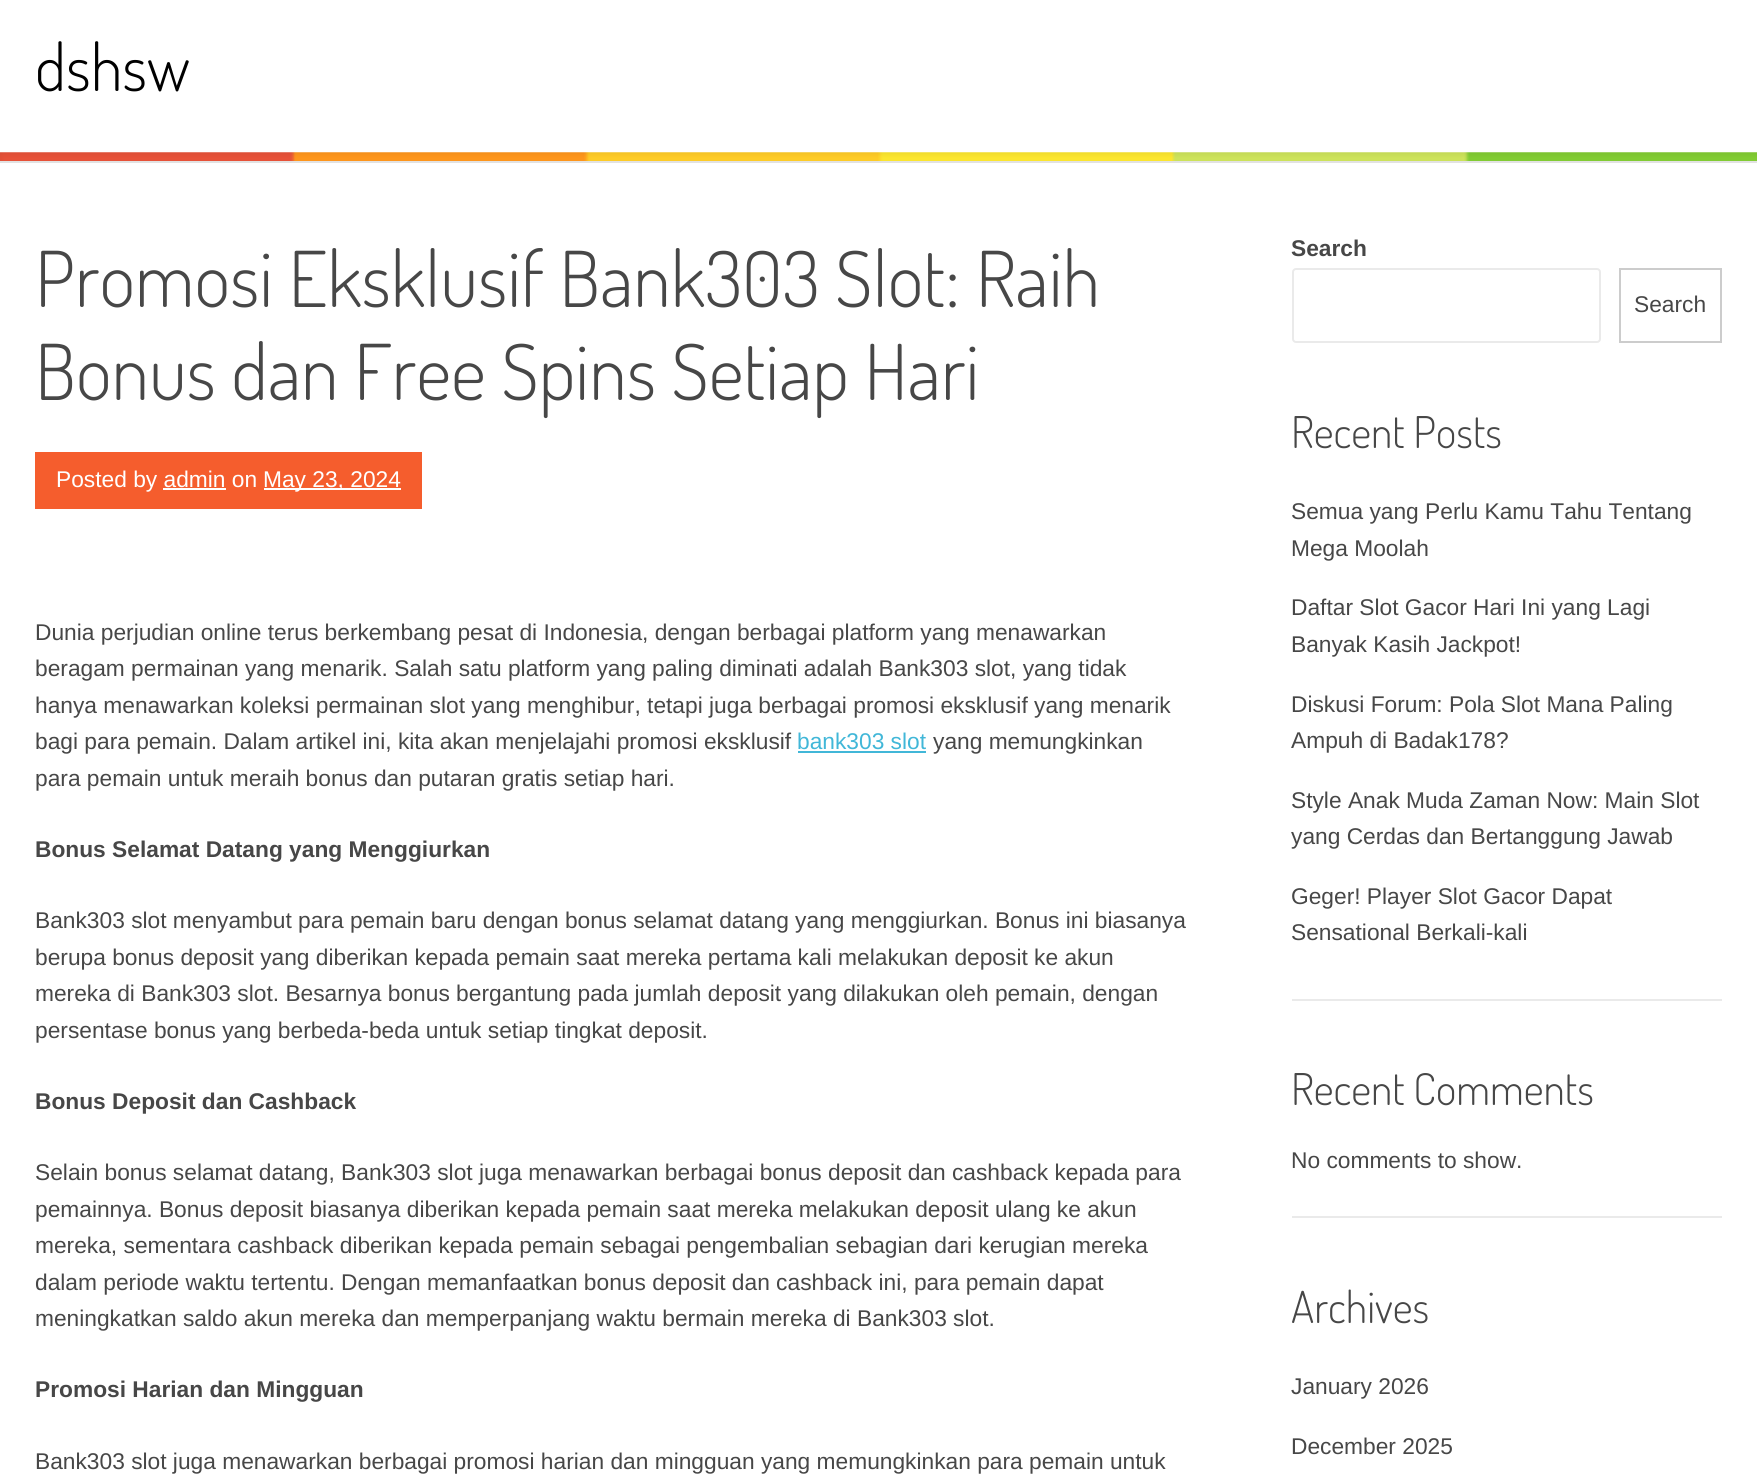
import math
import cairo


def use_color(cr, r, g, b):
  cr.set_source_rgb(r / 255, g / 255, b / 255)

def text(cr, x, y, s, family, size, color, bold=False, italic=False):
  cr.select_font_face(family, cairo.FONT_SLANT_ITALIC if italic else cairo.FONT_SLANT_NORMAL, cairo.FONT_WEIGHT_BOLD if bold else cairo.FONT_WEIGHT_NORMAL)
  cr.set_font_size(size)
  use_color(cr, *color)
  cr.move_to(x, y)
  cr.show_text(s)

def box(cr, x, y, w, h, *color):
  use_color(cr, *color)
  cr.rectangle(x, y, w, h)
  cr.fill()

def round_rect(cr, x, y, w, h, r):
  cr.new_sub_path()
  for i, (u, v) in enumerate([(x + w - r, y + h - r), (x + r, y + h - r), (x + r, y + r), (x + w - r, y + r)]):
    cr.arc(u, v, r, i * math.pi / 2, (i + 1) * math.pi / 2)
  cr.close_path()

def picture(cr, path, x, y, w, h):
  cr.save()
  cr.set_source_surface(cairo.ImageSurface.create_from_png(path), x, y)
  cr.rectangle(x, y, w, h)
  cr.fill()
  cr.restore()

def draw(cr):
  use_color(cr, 255, 255, 255)
  cr.paint()
  picture(cr, "img_01.png", 0, 152, 1757, 9)
  box(cr, 0, 161, 1757, 2, 226, 226, 226)
  box(cr, 35, 452, 387, 57, 245, 93, 45)
  box(cr, 163, 488, 63, 2, 255, 255, 255)
  box(cr, 264, 488, 137, 2, 255, 255, 255)
  box(cr, 798, 751, 128, 2, 65, 183, 216)
  round_rect(cr, 1293, 269, 307, 73, 3)
  use_color(cr, 234, 234, 234)
  cr.stroke()
  cr.rectangle(1620, 269, 101, 73)
  use_color(cr, 204, 204, 204)
  cr.stroke()
  box(cr, 1292, 999, 430, 2, 234, 234, 234)
  box(cr, 1292, 1216, 430, 2, 234, 234, 234)
  text(cr, 35, 91, "dshsw", "Dosis Light", 65, (0, 0, 0))
  text(cr, 35, 307, "Promosi Eksklusif Bank303 Slot: Raih", "Dosis Light", 77, (71, 71, 71))
  text(cr, 35, 400, "Bonus dan Free Spins Setiap Hari", "Dosis Light", 77, (71, 71, 71))
  text(cr, 56, 487, "Posted by admin on", "Liberation Sans", 22.75, (255, 255, 255))
  text(cr, 263, 487, "May 23, 2024", "Liberation Sans", 22.75, (255, 255, 255))
  text(cr, 35, 640, "Dunia perjudian online terus berkembang pesat di Indonesia, dengan berbagai platform yang menawarkan", "Liberation Sans", 22.75, (71, 71, 71))
  text(cr, 35, 676, "beragam permainan yang menarik. Salah satu platform yang paling diminati adalah Bank303 slot, yang tidak", "Liberation Sans", 22.75, (71, 71, 71))
  text(cr, 35, 713, "hanya menawarkan koleksi permainan slot yang menghibur, tetapi juga berbagai promosi eksklusif yang menarik", "Liberation Sans", 22.75, (71, 71, 71))
  text(cr, 35, 749, "bagi para pemain. Dalam artikel ini, kita akan menjelajahi promosi eksklusif", "Liberation Sans", 22.75, (71, 71, 71))
  text(cr, 797, 749, "bank303 slot", "Liberation Sans", 22.75, (65, 183, 216))
  text(cr, 933, 749, "yang memungkinkan", "Liberation Sans", 22.75, (71, 71, 71))
  text(cr, 35, 786, "para pemain untuk meraih bonus dan putaran gratis setiap hari.", "Liberation Sans", 22.75, (71, 71, 71))
  text(cr, 35, 857, "Bonus Selamat Datang yang Menggiurkan", "Liberation Sans", 22.75, (71, 71, 71), bold=True)
  text(cr, 35, 928, "Bank303 slot menyambut para pemain baru dengan bonus selamat datang yang menggiurkan. Bonus ini biasanya", "Liberation Sans", 22.75, (71, 71, 71))
  text(cr, 35, 965, "berupa bonus deposit yang diberikan kepada pemain saat mereka pertama kali melakukan deposit ke akun", "Liberation Sans", 22.75, (71, 71, 71))
  text(cr, 35, 1001, "mereka di Bank303 slot. Besarnya bonus bergantung pada jumlah deposit yang dilakukan oleh pemain, dengan", "Liberation Sans", 22.75, (71, 71, 71))
  text(cr, 35, 1038, "persentase bonus yang berbeda-beda untuk setiap tingkat deposit.", "Liberation Sans", 22.75, (71, 71, 71))
  text(cr, 35, 1109, "Bonus Deposit dan Cashback", "Liberation Sans", 22.75, (71, 71, 71), bold=True)
  text(cr, 35, 1180, "Selain bonus selamat datang, Bank303 slot juga menawarkan berbagai bonus deposit dan cashback kepada para", "Liberation Sans", 22.75, (71, 71, 71))
  text(cr, 35, 1217, "pemainnya. Bonus deposit biasanya diberikan kepada pemain saat mereka melakukan deposit ulang ke akun", "Liberation Sans", 22.75, (71, 71, 71))
  text(cr, 35, 1253, "mereka, sementara cashback diberikan kepada pemain sebagai pengembalian sebagian dari kerugian mereka", "Liberation Sans", 22.75, (71, 71, 71))
  text(cr, 35, 1290, "dalam periode waktu tertentu. Dengan memanfaatkan bonus deposit dan cashback ini, para pemain dapat", "Liberation Sans", 22.75, (71, 71, 71))
  text(cr, 35, 1326, "meningkatkan saldo akun mereka dan memperpanjang waktu bermain mereka di Bank303 slot.", "Liberation Sans", 22.75, (71, 71, 71))
  text(cr, 35, 1397, "Promosi Harian dan Mingguan", "Liberation Sans", 22.75, (71, 71, 71), bold=True)
  text(cr, 35, 1469, "Bank303 slot juga menawarkan berbagai promosi harian dan mingguan yang memungkinkan para pemain untuk", "Liberation Sans", 22.75, (71, 71, 71))
  text(cr, 1291, 256, "Search", "Liberation Sans", 22.75, (71, 71, 71), bold=True)
  text(cr, 1634, 312, "Search", "Liberation Sans", 22.75, (71, 71, 71))
  text(cr, 1291, 448, "Recent Posts", "Dosis Light", 43.75, (71, 71, 71))
  text(cr, 1291, 519, "Semua yang Perlu Kamu Tahu Tentang", "Liberation Sans", 22.75, (71, 71, 71))
  text(cr, 1291, 556, "Mega Moolah", "Liberation Sans", 22.75, (71, 71, 71))
  text(cr, 1291, 615, "Daftar Slot Gacor Hari Ini yang Lagi", "Liberation Sans", 22.75, (71, 71, 71))
  text(cr, 1291, 652, "Banyak Kasih Jackpot!", "Liberation Sans", 22.75, (71, 71, 71))
  text(cr, 1291, 712, "Diskusi Forum: Pola Slot Mana Paling", "Liberation Sans", 22.75, (71, 71, 71))
  text(cr, 1291, 748, "Ampuh di Badak178?", "Liberation Sans", 22.75, (71, 71, 71))
  text(cr, 1291, 808, "Style Anak Muda Zaman Now: Main Slot", "Liberation Sans", 22.75, (71, 71, 71))
  text(cr, 1291, 844, "yang Cerdas dan Bertanggung Jawab", "Liberation Sans", 22.75, (71, 71, 71))
  text(cr, 1291, 904, "Geger! Player Slot Gacor Dapat", "Liberation Sans", 22.75, (71, 71, 71))
  text(cr, 1291, 940, "Sensational Berkali-kali", "Liberation Sans", 22.75, (71, 71, 71))
  text(cr, 1291, 1105, "Recent Comments", "Dosis Light", 43.75, (71, 71, 71))
  text(cr, 1291, 1168, "No comments to show.", "Liberation Sans", 22.75, (71, 71, 71))
  text(cr, 1291, 1323, "Archives", "Dosis Light", 43.75, (71, 71, 71))
  text(cr, 1291, 1394, "January 2026", "Liberation Sans", 22.75, (71, 71, 71))
  text(cr, 1291, 1454, "December 2025", "Liberation Sans", 22.75, (71, 71, 71))


surface = cairo.ImageSurface(cairo.FORMAT_RGB24, 1757, 1477)
cr = cairo.Context(surface)
options = cairo.FontOptions()
options.set_hint_metrics(cairo.HINT_METRICS_OFF)
options.set_hint_style(cairo.HINT_STYLE_NONE)
cr.set_font_options(options)
cr.set_miter_limit(4)
draw(cr)
surface.write_to_png("out.png")
